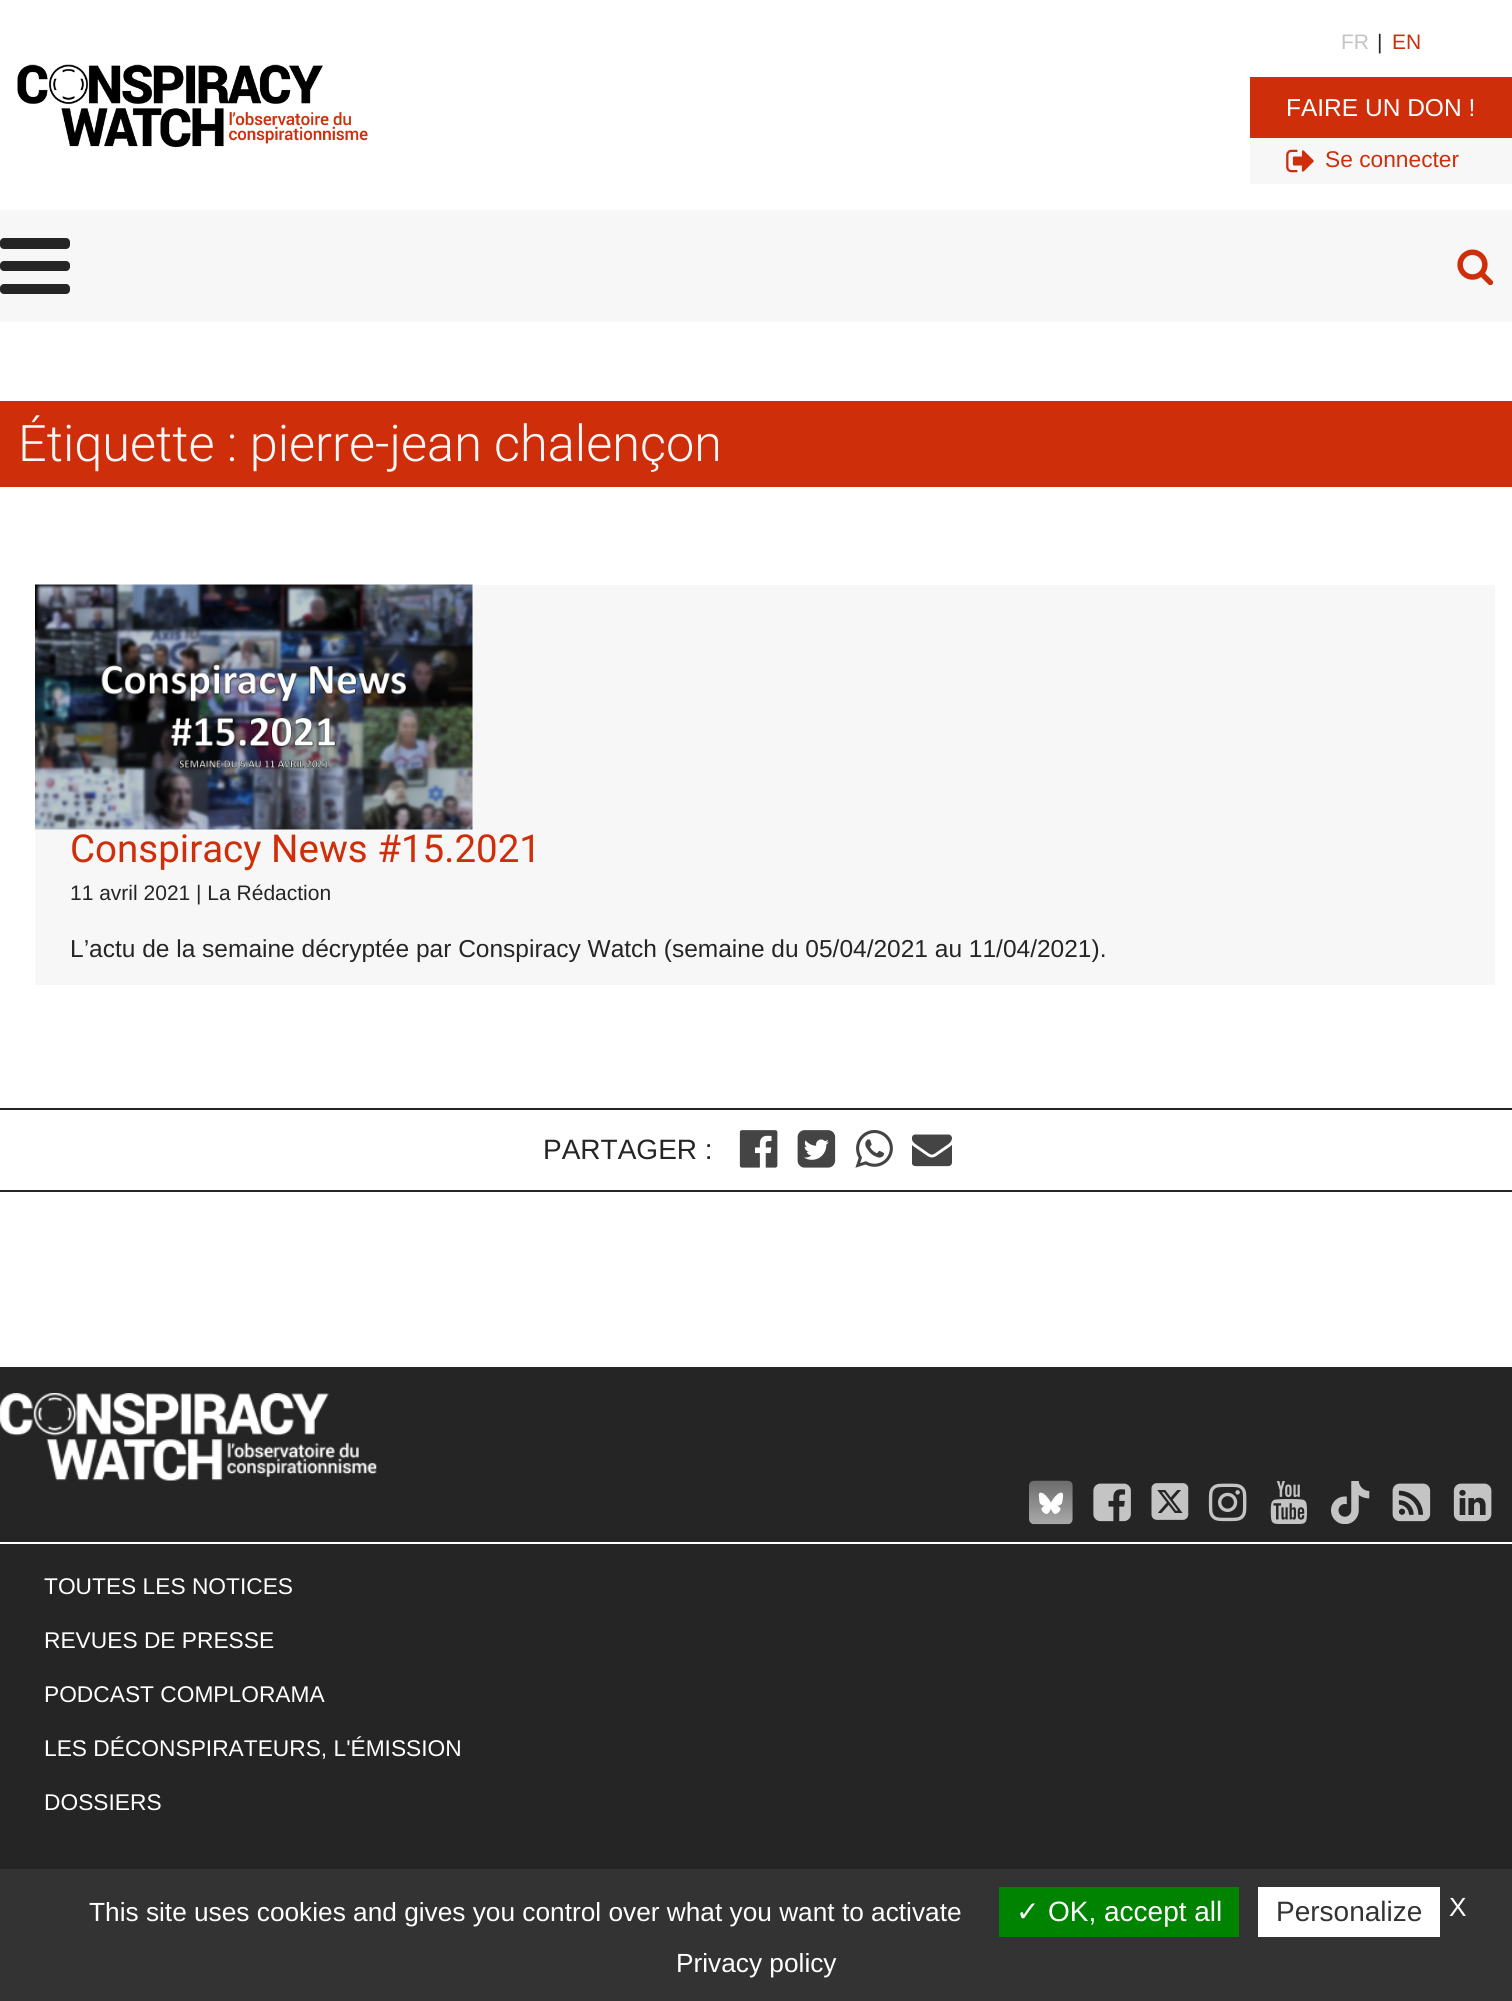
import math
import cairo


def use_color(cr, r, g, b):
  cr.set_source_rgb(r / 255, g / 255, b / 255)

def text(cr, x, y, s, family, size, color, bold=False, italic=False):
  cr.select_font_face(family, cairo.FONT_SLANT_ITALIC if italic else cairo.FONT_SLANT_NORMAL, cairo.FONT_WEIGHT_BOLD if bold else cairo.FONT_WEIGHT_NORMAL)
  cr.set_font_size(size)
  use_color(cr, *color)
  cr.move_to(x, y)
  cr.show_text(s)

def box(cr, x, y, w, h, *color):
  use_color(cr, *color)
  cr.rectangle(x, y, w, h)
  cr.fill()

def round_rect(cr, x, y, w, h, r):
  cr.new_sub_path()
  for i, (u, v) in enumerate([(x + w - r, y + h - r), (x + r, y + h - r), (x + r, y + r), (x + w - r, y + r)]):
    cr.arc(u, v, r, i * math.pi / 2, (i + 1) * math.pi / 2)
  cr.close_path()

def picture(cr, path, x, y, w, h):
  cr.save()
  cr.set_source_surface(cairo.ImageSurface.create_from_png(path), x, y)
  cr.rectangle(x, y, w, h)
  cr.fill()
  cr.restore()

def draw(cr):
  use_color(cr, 255, 255, 255)
  cr.paint()
  picture(cr, "img_01.png", 17, 64, 351, 83)
  box(cr, 1250, 77, 262, 61, 206, 46, 10)
  box(cr, 1250, 138, 262, 46, 247, 247, 247)
  picture(cr, "img_02.png", 1286, 149, 28, 24)
  box(cr, 0, 210, 1512, 112, 247, 247, 247)
  use_color(cr, 37, 37, 37)
  round_rect(cr, 0, 238, 70, 11, 4)
  cr.fill()
  round_rect(cr, 0, 261, 70, 10, 4)
  cr.fill()
  round_rect(cr, 0, 284, 70, 10, 4)
  cr.fill()
  picture(cr, "img_03.png", 1457, 249, 37, 36)
  box(cr, 0, 401, 1512, 86, 206, 46, 10)
  box(cr, 35, 585, 1460, 400, 247, 247, 247)
  picture(cr, "img_04.png", 35, 584, 438, 246)
  box(cr, 0, 1108, 1512, 2, 37, 37, 37)
  box(cr, 0, 1190, 1512, 2, 37, 37, 37)
  picture(cr, "img_05.png", 739, 1130, 39, 38)
  picture(cr, "img_06.png", 797, 1130, 39, 38)
  picture(cr, "img_07.png", 855, 1130, 38, 38)
  picture(cr, "img_08.png", 912, 1134, 40, 33)
  box(cr, 0, 1367, 1512, 502, 37, 37, 37)
  picture(cr, "img_09.png", 0, 1393, 377, 88)
  picture(cr, "img_10.png", 1029, 1480, 44, 45)
  picture(cr, "img_11.png", 1093, 1483, 38, 39)
  picture(cr, "img_12.png", 1151, 1483, 38, 37)
  picture(cr, "img_13.png", 1208, 1483, 39, 39)
  picture(cr, "img_14.png", 1270, 1481, 37, 43)
  picture(cr, "img_15.png", 1331, 1481, 39, 43)
  picture(cr, "img_16.png", 1392, 1483, 39, 39)
  picture(cr, "img_17.png", 1453, 1483, 39, 39)
  box(cr, 0, 1542, 1512, 2, 255, 255, 255)
  box(cr, 0, 1869, 1512, 132, 51, 51, 51)
  box(cr, 999, 1887, 240, 50, 0, 131, 0)
  box(cr, 1258, 1887, 182, 50, 255, 255, 255)
  text(cr, 1341, 49, "FR", "Liberation Sans", 21, (196, 196, 196))
  text(cr, 1377, 49, "|", "Liberation Sans", 21, (37, 37, 37))
  text(cr, 1392, 49, "EN", "Liberation Sans", 21, (206, 46, 10))
  text(cr, 1286, 116, "FAIRE UN DON !", "Liberation Sans", 24.5, (255, 255, 255))
  text(cr, 1325, 167, "Se connecter", "Liberation Sans", 22.75, (206, 46, 10))
  text(cr, 18, 461, "Étiquette : pierre-jean chalençon", "Roboto Light", 50.4, (247, 247, 247))
  text(cr, 70, 862, "Conspiracy News #15.2021", "Roboto", 38.5, (206, 46, 10))
  text(cr, 70, 900, "11 avril 2021 | La Rédaction", "Liberation Sans", 21, (37, 37, 37))
  text(cr, 70, 957, "L’actu de la semaine décryptée par Conspiracy Watch (semaine du 05/04/2021 au 11/04/2021).", "Liberation Sans", 24.5, (37, 37, 37))
  text(cr, 543, 1159, "PARTAGER :", "Liberation Sans", 28, (37, 37, 37))
  text(cr, 44, 1594, "TOUTES LES NOTICES", "Liberation Sans", 22.75, (255, 255, 255))
  text(cr, 44, 1648, "REVUES DE PRESSE", "Liberation Sans", 22.75, (255, 255, 255))
  text(cr, 44, 1702, "PODCAST COMPLORAMA", "Liberation Sans", 22.75, (255, 255, 255))
  text(cr, 44, 1756, "LES DÉCONSPIRATEURS, L'ÉMISSION", "Liberation Sans", 22.75, (255, 255, 255))
  text(cr, 44, 1810, "DOSSIERS", "Liberation Sans", 22.75, (255, 255, 255))
  text(cr, 89, 1921, "This site uses cookies and gives you control over what you want to activate", "Liberation Sans", 26.25, (255, 255, 255))
  text(cr, 1016, 1921, "✓", "DejaVu Sans", 28, (255, 255, 255))
  text(cr, 1048, 1921, "OK, accept all", "Liberation Sans", 28, (255, 255, 255))
  text(cr, 1276, 1921, "Personalize", "Liberation Sans", 28, (51, 51, 51))
  text(cr, 1449, 1916, "X", "Liberation Sans", 26.25, (255, 255, 255))
  text(cr, 676, 1972, "Privacy policy", "Liberation Sans", 26.25, (255, 255, 255))


surface = cairo.ImageSurface(cairo.FORMAT_RGB24, 1512, 2001)
cr = cairo.Context(surface)
options = cairo.FontOptions()
options.set_hint_metrics(cairo.HINT_METRICS_OFF)
options.set_hint_style(cairo.HINT_STYLE_NONE)
cr.set_font_options(options)
cr.set_miter_limit(4)
draw(cr)
surface.write_to_png("out.png")
